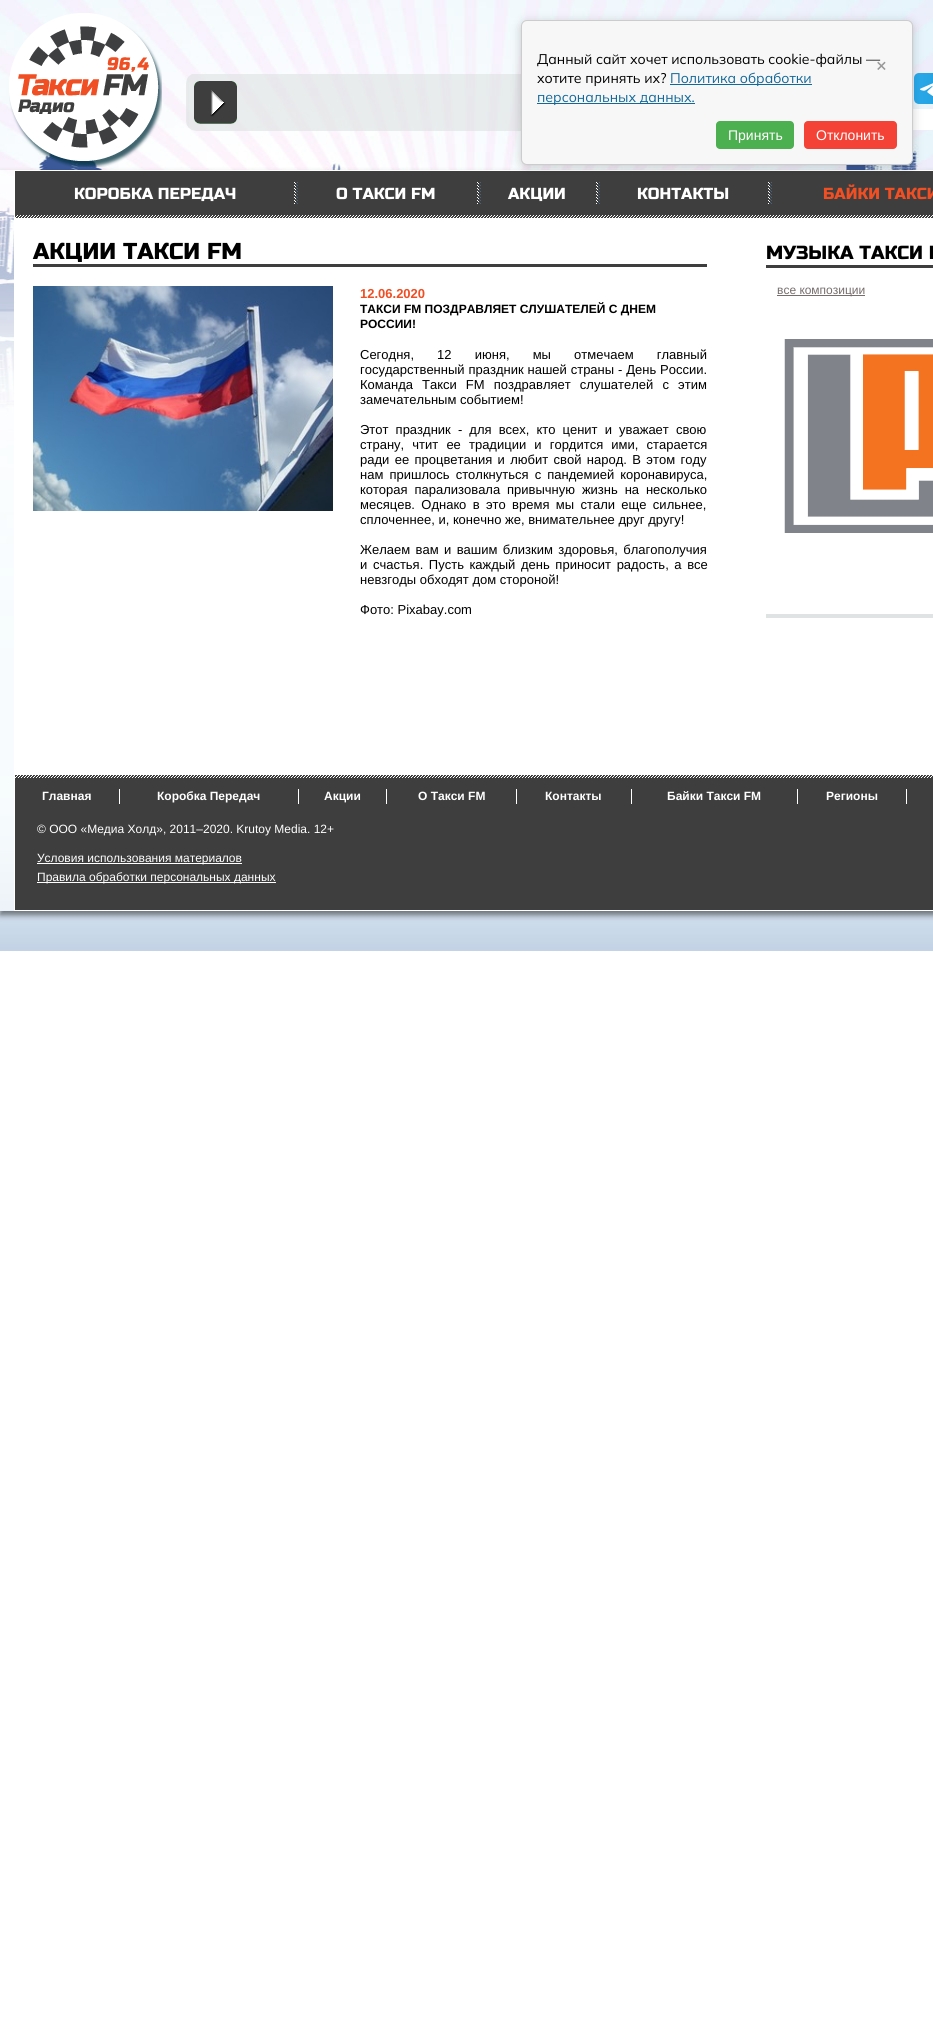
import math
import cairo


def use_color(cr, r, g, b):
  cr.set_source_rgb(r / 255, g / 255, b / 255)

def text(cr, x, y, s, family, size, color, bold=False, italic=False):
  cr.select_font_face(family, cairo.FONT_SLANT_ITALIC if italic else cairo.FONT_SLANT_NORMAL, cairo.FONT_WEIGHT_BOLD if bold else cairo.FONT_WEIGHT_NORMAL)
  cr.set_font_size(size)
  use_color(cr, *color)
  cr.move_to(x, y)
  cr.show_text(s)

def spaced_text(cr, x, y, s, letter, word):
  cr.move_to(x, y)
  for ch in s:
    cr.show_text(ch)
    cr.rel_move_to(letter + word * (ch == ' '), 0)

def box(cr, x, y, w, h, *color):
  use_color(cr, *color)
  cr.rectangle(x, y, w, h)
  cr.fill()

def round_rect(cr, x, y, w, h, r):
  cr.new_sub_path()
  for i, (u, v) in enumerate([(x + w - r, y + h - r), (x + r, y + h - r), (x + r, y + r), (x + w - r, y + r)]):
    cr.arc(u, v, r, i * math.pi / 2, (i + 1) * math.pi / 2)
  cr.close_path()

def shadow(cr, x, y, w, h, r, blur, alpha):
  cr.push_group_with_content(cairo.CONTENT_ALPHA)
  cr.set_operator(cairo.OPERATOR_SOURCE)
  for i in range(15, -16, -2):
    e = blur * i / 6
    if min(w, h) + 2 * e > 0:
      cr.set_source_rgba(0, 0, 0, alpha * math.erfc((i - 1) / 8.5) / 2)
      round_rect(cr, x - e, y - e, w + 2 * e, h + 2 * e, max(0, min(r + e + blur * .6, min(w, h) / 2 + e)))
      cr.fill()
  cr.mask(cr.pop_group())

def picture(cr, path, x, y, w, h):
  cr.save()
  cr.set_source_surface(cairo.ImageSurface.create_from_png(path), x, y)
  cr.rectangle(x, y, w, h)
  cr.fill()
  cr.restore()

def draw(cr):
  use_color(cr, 255, 255, 255)
  cr.paint()
  picture(cr, "img_01.png", 0, 0, 933, 951)
  picture(cr, "img_03.png", 186, 74, 335, 57)
  picture(cr, "img_05.png", 914, 73, 19, 31)
  box(cr, 913, 109, 20, 21, 255, 255, 255)
  cr.save()
  cr.set_fill_rule(cairo.FILL_RULE_EVEN_ODD)
  cr.new_path()
  cr.move_to(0, 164)
  cr.line_to(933, 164)
  cr.line_to(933, 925)
  cr.line_to(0, 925)
  cr.close_path()
  cr.move_to(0, 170)
  cr.line_to(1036, 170)
  cr.line_to(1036, 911)
  cr.line_to(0, 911)
  cr.close_path()
  cr.clip()
  use_color(cr, 0, 0, 0)
  shadow(cr, 0, 174, 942, 741, 0, 3, 0.5)
  cr.restore()
  box(cr, 14, 170, 919, 741, 255, 255, 255)
  box(cr, 15, 171, 918, 47, 62, 62, 63)
  picture(cr, "img_07.png", 596, 182, 4, 22)
  picture(cr, "img_07.png", 768, 182, 4, 22)
  use_color(cr, 0, 0, 0)
  shadow(cr, 521, 22, 392, 145, 6, 5, 0.2)
  use_color(cr, 247, 247, 247)
  round_rect(cr, 521.5, 20.5, 391, 144, 5.5)
  cr.fill_preserve()
  use_color(cr, 204, 204, 204)
  cr.set_line_width(1)
  cr.stroke()
  box(cr, 670, 84, 142, 1, 18, 104, 153)
  box(cr, 537, 103, 158, 1, 18, 104, 153)
  use_color(cr, 76, 175, 80)
  round_rect(cr, 716, 121, 78, 28, 4)
  cr.fill()
  use_color(cr, 244, 67, 54)
  round_rect(cr, 804, 121, 93, 28, 4)
  cr.fill()
  picture(cr, "img_02.png", 9, 13, 153, 154)
  picture(cr, "img_04.png", 194, 81, 43, 43)
  cr.set_source_rgba(1, 1, 1, 0.6)
  cr.rectangle(0, 170, 14, 741)
  cr.fill()
  picture(cr, "img_06.png", 15, 215, 918, 3)
  picture(cr, "img_07.png", 294, 182, 4, 22)
  picture(cr, "img_07.png", 477, 182, 4, 22)
  box(cr, 33, 264, 674, 3, 62, 62, 63)
  picture(cr, "img_08.png", 33, 286, 300, 225)
  box(cr, 766, 265, 167, 3, 62, 62, 63)
  box(cr, 777, 295, 88, 1, 119, 109, 109)
  picture(cr, "img_09.png", 784, 339, 149, 194)
  box(cr, 766, 614, 167, 4, 223, 227, 227)
  box(cr, 15, 775, 918, 135, 62, 62, 63)
  picture(cr, "img_06.png", 15, 775, 918, 3)
  box(cr, 119, 789, 1, 15, 255, 255, 255)
  box(cr, 298, 789, 1, 15, 255, 255, 255)
  box(cr, 386, 789, 1, 15, 255, 255, 255)
  box(cr, 516, 789, 1, 15, 255, 255, 255)
  box(cr, 631, 789, 1, 15, 255, 255, 255)
  box(cr, 797, 789, 1, 15, 255, 255, 255)
  box(cr, 906, 789, 1, 15, 255, 255, 255)
  box(cr, 37, 863, 205, 1, 255, 255, 255)
  box(cr, 37, 882, 239, 1, 255, 255, 255)
  text(cr, 537, 64, "Данный сайт хочет использовать cookie-файлы —", "Mulish", 14, (0, 0, 0))
  text(cr, 537, 83, "хотите принять их?", "Mulish", 14, (0, 0, 0))
  text(cr, 670, 83, "Политика обработки", "Mulish", 14, (18, 104, 153))
  text(cr, 537, 102, "персональных данных.", "Mulish", 14, (18, 104, 153))
  text(cr, 876, 71, "×", "Mulish", 18, (153, 153, 153), bold=True)
  text(cr, 728, 140, "Принять", "Liberation Sans", 14, (255, 255, 255))
  text(cr, 816, 140, "Отклонить", "Liberation Sans", 14, (255, 255, 255))
  text(cr, 74, 199, "КОРОБКА ПЕРЕДАЧ", "Russo One", 16, (255, 255, 255))
  text(cr, 336, 199, "О ТАКСИ FM", "Russo One", 16, (255, 255, 255))
  text(cr, 508, 199, "АКЦИИ", "Russo One", 16, (255, 255, 255))
  text(cr, 637, 199, "КОНТАКТЫ", "Russo One", 16, (255, 255, 255))
  text(cr, 823, 199, "БАЙКИ ТАКСИ", "Russo One", 16, (240, 78, 35))
  text(cr, 33, 259, "АКЦИИ ТАКСИ FM", "Russo One", 23, (0, 0, 0))
  text(cr, 360, 298, "12.06.2020", "Liberation Sans", 13, (240, 78, 35), bold=True)
  text(cr, 360, 313, "ТАКСИ FM ПОЗДРАВЛЯЕТ СЛУШАТЕЛЕЙ С ДНЕМ", "Liberation Sans", 12, (0, 0, 0), bold=True)
  text(cr, 360, 328, "РОССИИ!", "Liberation Sans", 12, (0, 0, 0), bold=True)
  cr.select_font_face("Liberation Sans")
  cr.set_font_size(13)
  spaced_text(cr, 360, 359, "Сегодня, 12 июня, мы отмечаем главный", 0, 19.5)
  spaced_text(cr, 360, 374, "государственный праздник нашей страны - День России.", 0, 0.25)
  spaced_text(cr, 360, 389, "Команда Такси FM поздравляет слушателей с этим", 0, 5.5)
  text(cr, 360, 404, "замечательным событием!", "Liberation Sans", 13, (0, 0, 0))
  spaced_text(cr, 360, 434, "Этот праздник - для всех, кто ценит и уважает свою", 0, 3.5)
  spaced_text(cr, 360, 449, "страну, чтит ее традиции и гордится ими, старается", 0, 4.5)
  spaced_text(cr, 360, 464, "ради ее процветания и любит свой народ. В этом году", 0, 1.75)
  spaced_text(cr, 360, 479, "нам пришлось столкнуться с пандемией коронавируса,", 0, 2.5)
  spaced_text(cr, 360, 494, "которая парализовала привычную жизнь на несколько", 0, 3.25)
  spaced_text(cr, 360, 509, "месяцев. Однако в это время мы стали еще сильнее,", 0, 2.75)
  text(cr, 360, 524, "сплоченнее, и, конечно же, внимательнее друг другу!", "Liberation Sans", 13, (0, 0, 0))
  spaced_text(cr, 360, 554, "Желаем вам и вашим близким здоровья, благополучия", 0, 1.75)
  spaced_text(cr, 360, 569, "и счастья. Пусть каждый день приносит радость, а все", 0, 2)
  text(cr, 360, 584, "невзгоды обходят дом стороной!", "Liberation Sans", 13, (0, 0, 0))
  text(cr, 360, 614, "Фото: Pixabay.com", "Liberation Sans", 13, (0, 0, 0))
  text(cr, 766, 259, "МУЗЫКА ТАКСИ F", "Russo One", 19, (0, 0, 0))
  text(cr, 777, 294, "все композиции", "Liberation Sans", 12, (119, 109, 109))
  text(cr, 42, 800, "Главная", "Liberation Sans", 12, (255, 255, 255), bold=True)
  text(cr, 157, 800, "Коробка Передач", "Liberation Sans", 12, (255, 255, 255), bold=True)
  text(cr, 324, 800, "Акции", "Liberation Sans", 12, (255, 255, 255), bold=True)
  text(cr, 418, 800, "О Такси FM", "Liberation Sans", 12, (255, 255, 255), bold=True)
  text(cr, 545, 800, "Контакты", "Liberation Sans", 12, (255, 255, 255), bold=True)
  text(cr, 667, 800, "Байки Такси FM", "Liberation Sans", 12, (255, 255, 255), bold=True)
  text(cr, 826, 800, "Регионы", "Liberation Sans", 12, (255, 255, 255), bold=True)
  text(cr, 37, 833, "© ООО «Медиа Холд», 2011–2020. Krutoy Media. 12+", "Liberation Sans", 12, (255, 255, 255))
  text(cr, 37, 862, "Условия использования материалов", "Liberation Sans", 12, (255, 255, 255))
  text(cr, 37, 881, "Правила обработки персональных данных", "Liberation Sans", 12, (255, 255, 255))


surface = cairo.ImageSurface(cairo.FORMAT_RGB24, 933, 2039)
cr = cairo.Context(surface)
options = cairo.FontOptions()
options.set_hint_metrics(cairo.HINT_METRICS_OFF)
options.set_hint_style(cairo.HINT_STYLE_NONE)
cr.set_font_options(options)
cr.set_miter_limit(4)
draw(cr)
surface.write_to_png("out.png")
